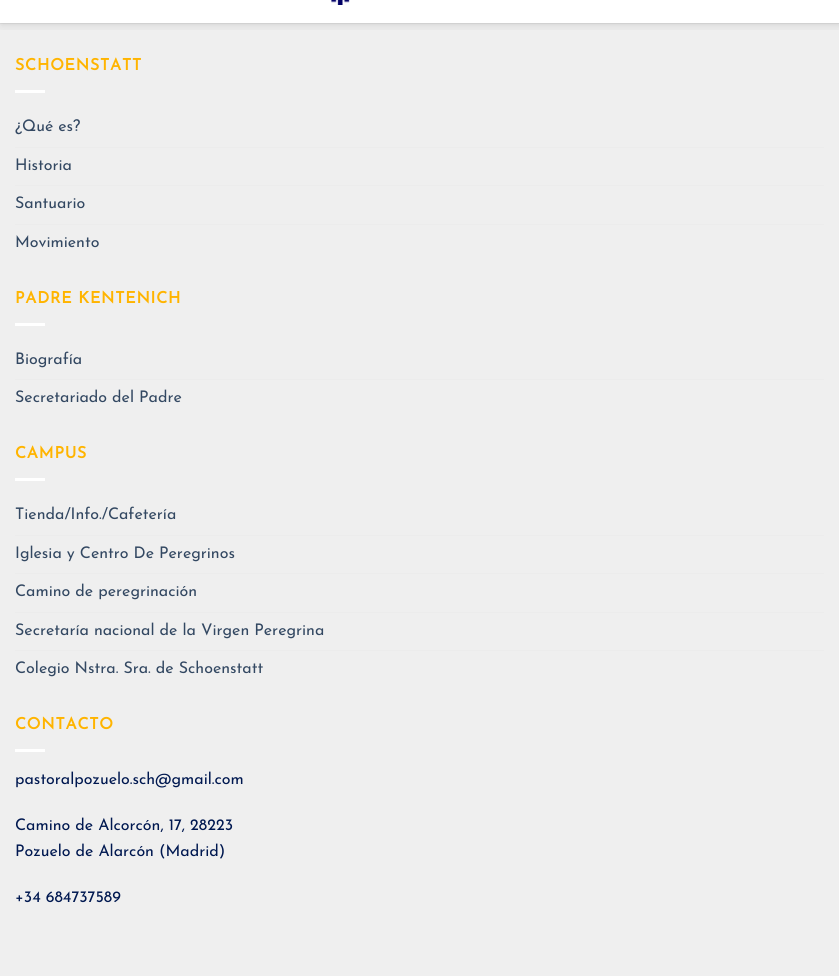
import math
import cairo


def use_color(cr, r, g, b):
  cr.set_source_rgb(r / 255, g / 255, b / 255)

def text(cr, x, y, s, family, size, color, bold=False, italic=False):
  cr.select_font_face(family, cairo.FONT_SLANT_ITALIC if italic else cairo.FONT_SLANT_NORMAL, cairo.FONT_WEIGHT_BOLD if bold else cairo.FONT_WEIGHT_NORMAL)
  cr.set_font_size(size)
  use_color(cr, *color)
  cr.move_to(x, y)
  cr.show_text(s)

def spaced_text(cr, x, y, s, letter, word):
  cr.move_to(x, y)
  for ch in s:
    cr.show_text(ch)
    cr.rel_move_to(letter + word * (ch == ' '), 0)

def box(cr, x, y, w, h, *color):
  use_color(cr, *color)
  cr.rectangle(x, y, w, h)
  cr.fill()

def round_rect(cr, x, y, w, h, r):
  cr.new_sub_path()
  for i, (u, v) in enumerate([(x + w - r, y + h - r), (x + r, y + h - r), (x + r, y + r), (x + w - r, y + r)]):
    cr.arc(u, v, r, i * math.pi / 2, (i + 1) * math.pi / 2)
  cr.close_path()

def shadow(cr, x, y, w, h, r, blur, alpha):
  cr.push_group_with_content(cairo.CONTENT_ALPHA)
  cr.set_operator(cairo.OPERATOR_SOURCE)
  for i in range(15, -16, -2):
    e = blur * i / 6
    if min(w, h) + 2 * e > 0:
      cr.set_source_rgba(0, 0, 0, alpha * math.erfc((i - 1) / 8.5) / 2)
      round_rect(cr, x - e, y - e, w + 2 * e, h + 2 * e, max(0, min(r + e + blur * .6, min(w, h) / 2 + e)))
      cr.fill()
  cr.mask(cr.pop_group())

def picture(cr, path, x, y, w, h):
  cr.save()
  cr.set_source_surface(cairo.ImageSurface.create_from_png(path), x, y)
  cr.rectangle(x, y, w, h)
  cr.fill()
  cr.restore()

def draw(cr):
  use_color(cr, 255, 255, 255)
  cr.paint()
  box(cr, 0, 24, 839, 952, 239, 239, 239)
  box(cr, 0, 23, 839, 1, 227, 227, 227)
  cr.save()
  cr.rectangle(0, 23, 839, 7)
  cr.clip()
  use_color(cr, 0, 0, 0)
  shadow(cr, 1, -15, 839, 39, 0, 5, 0.15)
  cr.restore()
  picture(cr, "img_01.png", 331, 0, 19, 5)
  box(cr, 15, 90, 30, 3, 255, 255, 255)
  box(cr, 15, 147, 809, 1, 236, 236, 236)
  box(cr, 15, 185, 809, 1, 236, 236, 236)
  box(cr, 15, 224, 809, 1, 236, 236, 236)
  box(cr, 15, 323, 30, 3, 255, 255, 255)
  box(cr, 15, 379, 809, 1, 236, 236, 236)
  box(cr, 15, 478, 30, 3, 255, 255, 255)
  box(cr, 15, 535, 809, 1, 236, 236, 236)
  box(cr, 15, 573, 809, 1, 236, 236, 236)
  box(cr, 15, 612, 809, 1, 236, 236, 236)
  box(cr, 15, 650, 809, 1, 236, 236, 236)
  box(cr, 15, 749, 30, 3, 255, 255, 255)
  cr.select_font_face("Josefin Sans", cairo.FONT_SLANT_NORMAL, cairo.FONT_WEIGHT_BOLD)
  cr.set_font_size(16)
  use_color(cr, 255, 180, 0)
  spaced_text(cr, 15, 70, "SCHOENSTATT", 0.75, 0)
  text(cr, 15, 131, "¿Qué es?", "Josefin Sans", 16, (51, 72, 98))
  text(cr, 15, 170, "Historia", "Josefin Sans", 16, (51, 72, 98))
  text(cr, 15, 208, "Santuario", "Josefin Sans", 16, (51, 72, 98))
  text(cr, 15, 247, "Movimiento", "Josefin Sans", 16, (51, 72, 98))
  cr.select_font_face("Josefin Sans", cairo.FONT_SLANT_NORMAL, cairo.FONT_WEIGHT_BOLD)
  use_color(cr, 255, 180, 0)
  spaced_text(cr, 15, 303, "PADRE KENTENICH", 0.75, 0)
  text(cr, 15, 364, "Biografía", "Josefin Sans", 16, (51, 72, 98))
  text(cr, 15, 402, "Secretariado del Padre", "Josefin Sans", 16, (51, 72, 98))
  cr.select_font_face("Josefin Sans", cairo.FONT_SLANT_NORMAL, cairo.FONT_WEIGHT_BOLD)
  use_color(cr, 255, 180, 0)
  spaced_text(cr, 15, 458, "CAMPUS", 0.75, 0)
  text(cr, 15, 519, "Tienda/Info./Cafetería", "Josefin Sans", 16, (51, 72, 98))
  text(cr, 15, 558, "Iglesia y Centro De Peregrinos", "Josefin Sans", 16, (51, 72, 98))
  text(cr, 15, 596, "Camino de peregrinación", "Josefin Sans", 16, (51, 72, 98))
  text(cr, 15, 635, "Secretaría nacional de la Virgen Peregrina", "Josefin Sans", 16, (51, 72, 98))
  text(cr, 15, 673, "Colegio Nstra. Sra. de Schoenstatt", "Josefin Sans", 16, (51, 72, 98))
  cr.select_font_face("Josefin Sans", cairo.FONT_SLANT_NORMAL, cairo.FONT_WEIGHT_BOLD)
  use_color(cr, 255, 180, 0)
  spaced_text(cr, 15, 729, "CONTACTO", 0.75, 0)
  text(cr, 15, 784, "pastoralpozuelo.sch@gmail.com", "Josefin Sans", 16, (0, 24, 80))
  text(cr, 15, 830, "Camino de Alcorcón, 17, 28223", "Josefin Sans", 16, (0, 24, 80))
  text(cr, 15, 856, "Pozuelo de Alarcón (Madrid)", "Josefin Sans", 16, (0, 24, 80))
  text(cr, 15, 902, "+34 684737589", "Josefin Sans", 16, (0, 24, 80))


surface = cairo.ImageSurface(cairo.FORMAT_RGB24, 839, 976)
cr = cairo.Context(surface)
options = cairo.FontOptions()
options.set_hint_metrics(cairo.HINT_METRICS_OFF)
options.set_hint_style(cairo.HINT_STYLE_NONE)
cr.set_font_options(options)
cr.set_miter_limit(4)
draw(cr)
surface.write_to_png("out.png")
